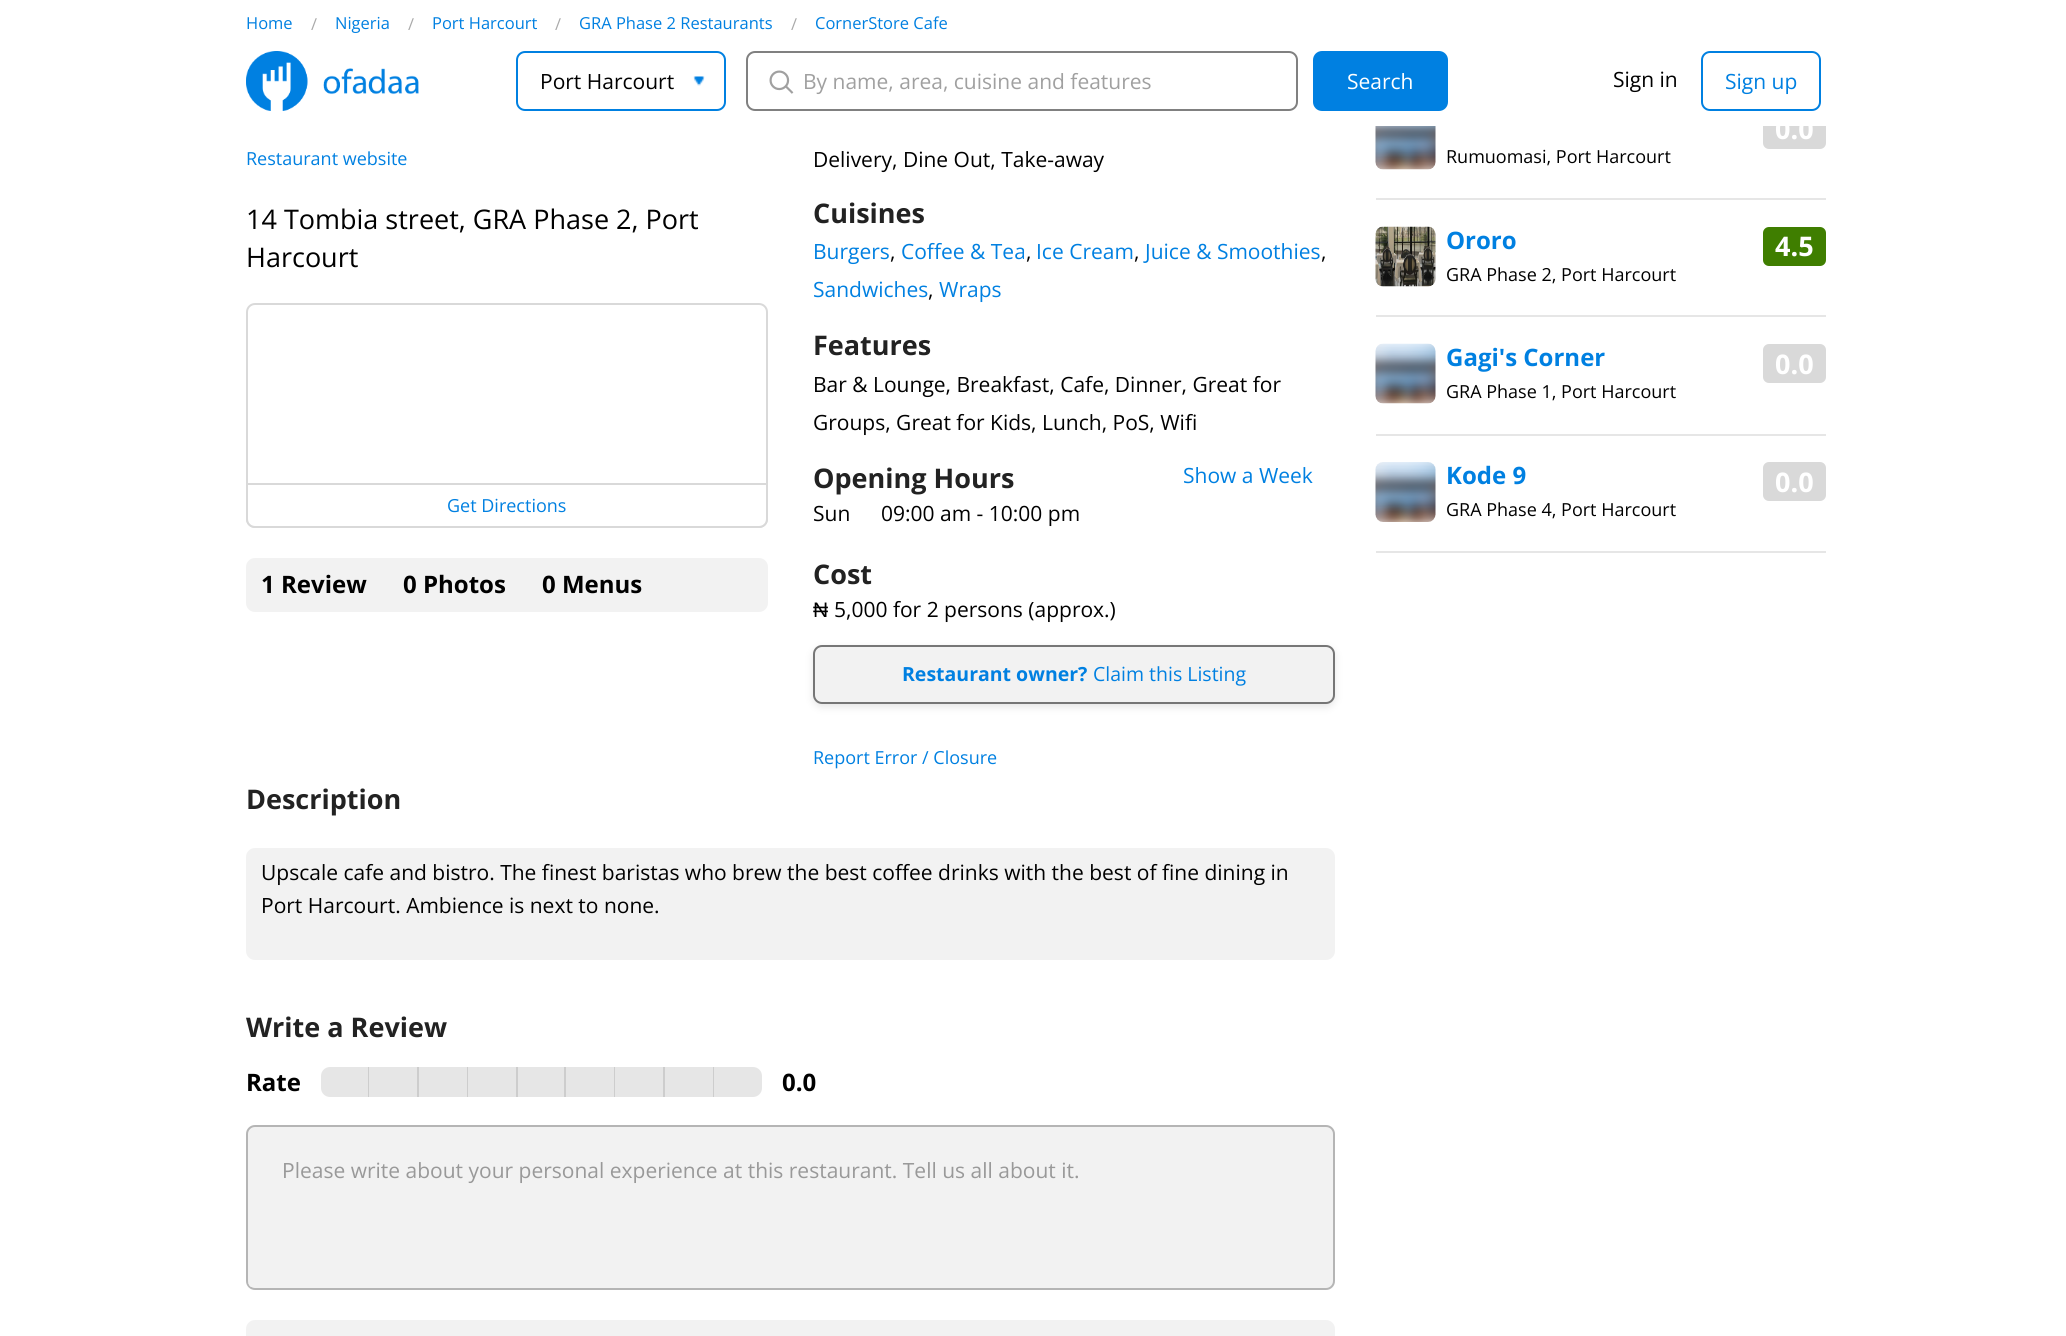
import math
import cairo


def use_color(cr, r, g, b):
  cr.set_source_rgb(r / 255, g / 255, b / 255)

def text(cr, x, y, s, family, size, color, bold=False, italic=False):
  cr.select_font_face(family, cairo.FONT_SLANT_ITALIC if italic else cairo.FONT_SLANT_NORMAL, cairo.FONT_WEIGHT_BOLD if bold else cairo.FONT_WEIGHT_NORMAL)
  cr.set_font_size(size)
  use_color(cr, *color)
  cr.move_to(x, y)
  cr.show_text(s)

def box(cr, x, y, w, h, *color):
  use_color(cr, *color)
  cr.rectangle(x, y, w, h)
  cr.fill()

def round_rect(cr, x, y, w, h, r):
  cr.new_sub_path()
  for i, (u, v) in enumerate([(x + w - r, y + h - r), (x + r, y + h - r), (x + r, y + r), (x + w - r, y + r)]):
    cr.arc(u, v, r, i * math.pi / 2, (i + 1) * math.pi / 2)
  cr.close_path()

def shadow(cr, x, y, w, h, r, blur, alpha):
  cr.push_group_with_content(cairo.CONTENT_ALPHA)
  cr.set_operator(cairo.OPERATOR_SOURCE)
  for i in range(15, -16, -2):
    e = blur * i / 6
    if min(w, h) + 2 * e > 0:
      cr.set_source_rgba(0, 0, 0, alpha * math.erfc((i - 1) / 8.5) / 2)
      round_rect(cr, x - e, y - e, w + 2 * e, h + 2 * e, max(0, min(r + e + blur * .6, min(w, h) / 2 + e)))
      cr.fill()
  cr.mask(cr.pop_group())

def picture(cr, path, x, y, w, h):
  cr.save()
  cr.set_source_surface(cairo.ImageSurface.create_from_png(path), x, y)
  cr.rectangle(x, y, w, h)
  cr.fill()
  cr.restore()

def draw(cr):
  use_color(cr, 255, 255, 255)
  cr.paint()
  use_color(cr, 217, 217, 217)
  round_rect(cr, 1763, 110, 63, 39, 6)
  cr.fill()
  box(cr, 1763, 110, 63, 16, 255, 255, 255)
  picture(cr, "img_01.png", 246, 51, 173, 60)
  picture(cr, "img_02.png", 693, 76, 12, 10)
  round_rect(cr, 517, 52, 208, 58, 8)
  use_color(cr, 0, 128, 225)
  cr.stroke()
  round_rect(cr, 747, 52, 550, 58, 8)
  use_color(cr, 128, 128, 128)
  cr.stroke()
  picture(cr, "img_03.png", 769, 70, 25, 24)
  use_color(cr, 0, 128, 225)
  round_rect(cr, 1313, 51, 135, 60, 9)
  cr.fill()
  round_rect(cr, 1702, 52, 118, 58, 8)
  cr.stroke()
  round_rect(cr, 247, 304, 520, 223, 8)
  use_color(cr, 217, 217, 217)
  cr.stroke()
  cr.set_source_rgba(1, 1, 1, 0.9)
  cr.new_path()
  cr.move_to(247, 484)
  cr.line_to(767, 484)
  cr.line_to(767, 519)
  cr.curve_to(767, 523.5, 763.5, 527, 759, 527)
  cr.line_to(255, 527)
  cr.curve_to(250.5, 527, 247, 523.5, 247, 519)
  cr.close_path()
  cr.fill_preserve()
  use_color(cr, 217, 217, 217)
  cr.stroke()
  use_color(cr, 242, 242, 242)
  round_rect(cr, 246, 558, 522, 54, 9)
  cr.fill()
  use_color(cr, 230, 230, 230)
  shadow(cr, 813, 648, 522, 59, 9, 4, 1)
  use_color(cr, 242, 242, 242)
  round_rect(cr, 814, 646, 520, 57, 8)
  cr.fill_preserve()
  use_color(cr, 118, 118, 118)
  cr.stroke()
  use_color(cr, 242, 242, 242)
  round_rect(cr, 246, 848, 1089, 112, 9)
  cr.fill()
  use_color(cr, 230, 230, 230)
  cr.new_path()
  cr.move_to(330, 1067)
  cr.line_to(369, 1067)
  cr.line_to(369, 1097)
  cr.line_to(330, 1097)
  cr.curve_to(325, 1097, 321, 1093, 321, 1088)
  cr.line_to(321, 1076)
  cr.curve_to(321, 1071, 325, 1067, 330, 1067)
  cr.close_path()
  cr.fill()
  box(cr, 368, 1067, 1, 30, 205, 205, 205)
  box(cr, 369, 1067, 48, 30, 230, 230, 230)
  box(cr, 417, 1067, 2, 30, 205, 205, 205)
  box(cr, 419, 1067, 48, 30, 230, 230, 230)
  box(cr, 467, 1067, 1, 30, 205, 205, 205)
  box(cr, 468, 1067, 48, 30, 230, 230, 230)
  box(cr, 516, 1067, 2, 30, 205, 205, 205)
  box(cr, 518, 1067, 46, 30, 230, 230, 230)
  box(cr, 564, 1067, 2, 30, 205, 205, 205)
  box(cr, 566, 1067, 48, 30, 230, 230, 230)
  box(cr, 614, 1067, 1, 30, 205, 205, 205)
  box(cr, 615, 1067, 48, 30, 230, 230, 230)
  box(cr, 663, 1067, 2, 30, 205, 205, 205)
  box(cr, 665, 1067, 48, 30, 230, 230, 230)
  box(cr, 713, 1067, 1, 30, 205, 205, 205)
  use_color(cr, 230, 230, 230)
  cr.new_path()
  cr.move_to(714, 1067)
  cr.line_to(753, 1067)
  cr.curve_to(758, 1067, 762, 1071, 762, 1076)
  cr.line_to(762, 1088)
  cr.curve_to(762, 1093, 758, 1097, 753, 1097)
  cr.line_to(714, 1097)
  cr.close_path()
  cr.fill()
  use_color(cr, 242, 242, 242)
  round_rect(cr, 246, 1125, 1089, 165, 9)
  cr.fill()
  round_rect(cr, 247, 1126, 1087, 163, 8)
  cr.set_source_rgba(0, 0, 0, 0.25)
  cr.stroke()
  use_color(cr, 242, 242, 242)
  cr.new_path()
  cr.move_to(251, 1287)
  cr.curve_to(249.5, 1286, 248.5, 1284.5, 248.5, 1283)
  cr.line_to(253.5, 1275.5)
  cr.line_to(263.5, 1282)
  cr.close_path()
  cr.fill()
  round_rect(cr, 246, 1320, 1089, 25, 9)
  cr.fill()
  box(cr, 1376, 198, 450, 2, 230, 230, 230)
  picture(cr, "img_04.png", 1375, 126, 61, 44)
  box(cr, 1376, 315, 450, 2, 230, 230, 230)
  picture(cr, "img_05.png", 1375, 226, 61, 61)
  use_color(cr, 63, 126, 0)
  round_rect(cr, 1763, 227, 63, 39, 6)
  cr.fill()
  box(cr, 1376, 434, 450, 2, 230, 230, 230)
  picture(cr, "img_06.png", 1375, 343, 61, 61)
  use_color(cr, 217, 217, 217)
  round_rect(cr, 1763, 344, 63, 39, 6)
  cr.fill()
  box(cr, 1376, 551, 450, 2, 230, 230, 230)
  picture(cr, "img_07.png", 1375, 462, 61, 60)
  use_color(cr, 217, 217, 217)
  round_rect(cr, 1763, 462, 63, 39, 6)
  cr.fill()
  text(cr, 246, 29, "Home", "Open Sans", 16.5, (0, 128, 225))
  text(cr, 311, 30, "/", "Open Sans", 16.5, (170, 170, 170))
  text(cr, 335, 29, "Nigeria", "Open Sans", 16.5, (0, 128, 225))
  text(cr, 408, 30, "/", "Open Sans", 16.5, (170, 170, 170))
  text(cr, 432, 29, "Port Harcourt", "Open Sans", 16.5, (0, 128, 225))
  text(cr, 555, 30, "/", "Open Sans", 16.5, (170, 170, 170))
  text(cr, 579, 29, "GRA Phase 2 Restaurants", "Open Sans", 16.5, (0, 128, 225))
  text(cr, 791, 30, "/", "Open Sans", 16.5, (170, 170, 170))
  text(cr, 815, 29, "CornerStore Cafe", "Open Sans", 16.5, (0, 128, 225))
  text(cr, 540, 89, "Port Harcourt", "Open Sans", 21, (0, 0, 0))
  text(cr, 803, 89, "By name, area, cuisine and features", "Open Sans", 21, (160, 160, 160))
  text(cr, 1347, 89, "Search", "Open Sans", 21, (255, 255, 255))
  text(cr, 1613, 87, "Sign in", "Open Sans", 21, (0, 0, 0))
  text(cr, 1725, 89, "Sign up", "Open Sans", 21, (0, 128, 225))
  text(cr, 246, 165, "Restaurant website", "Open Sans", 18, (0, 128, 225))
  text(cr, 246, 229, "14 Tombia street, GRA Phase 2, Port", "Open Sans", 27, (0, 0, 0))
  text(cr, 246, 267, "Harcourt", "Open Sans", 27, (0, 0, 0))
  text(cr, 447, 512, "Get Directions", "Open Sans", 18, (0, 128, 225))
  text(cr, 261, 593, "1 Review", "Open Sans", 24, (0, 0, 0), bold=True)
  text(cr, 403, 593, "0 Photos", "Open Sans", 24, (0, 0, 0), bold=True)
  text(cr, 542, 593, "0 Menus", "Open Sans", 24, (0, 0, 0), bold=True)
  text(cr, 813, 167, "Delivery, Dine Out, Take-away", "Open Sans", 21, (0, 0, 0))
  text(cr, 813, 223, "Cuisines", "Open Sans", 27, (34, 34, 34), bold=True)
  text(cr, 813, 259, "Burgers", "Open Sans", 21, (0, 128, 225))
  text(cr, 890, 259, ",", "Open Sans", 21, (0, 0, 0))
  text(cr, 901, 259, "Coffee & Tea", "Open Sans", 21, (0, 128, 225))
  text(cr, 1026, 259, ",", "Open Sans", 21, (0, 0, 0))
  text(cr, 1036, 259, "Ice Cream", "Open Sans", 21, (0, 128, 225))
  text(cr, 1134, 259, ",", "Open Sans", 21, (0, 0, 0))
  text(cr, 1145, 259, "Juice & Smoothies", "Open Sans", 21, (0, 128, 225))
  text(cr, 1321, 259, ",", "Open Sans", 21, (0, 0, 0))
  text(cr, 813, 297, "Sandwiches", "Open Sans", 21, (0, 128, 225))
  text(cr, 928, 297, ",", "Open Sans", 21, (0, 0, 0))
  text(cr, 939, 297, "Wraps", "Open Sans", 21, (0, 128, 225))
  text(cr, 813, 355, "Features", "Open Sans", 27, (34, 34, 34), bold=True)
  text(cr, 813, 392, "Bar & Lounge, Breakfast, Cafe, Dinner, Great for", "Open Sans", 21, (0, 0, 0))
  text(cr, 813, 430, "Groups, Great for Kids, Lunch, PoS, Wifi", "Open Sans", 21, (0, 0, 0))
  text(cr, 813, 488, "Opening Hours", "Open Sans", 27, (34, 34, 34), bold=True)
  text(cr, 1183, 483, "Show a Week", "Open Sans", 21, (0, 128, 225))
  text(cr, 813, 521, "Sun", "Open Sans", 21, (0, 0, 0))
  text(cr, 881, 521, "09:00 am - 10:00 pm", "Open Sans", 21, (0, 0, 0))
  text(cr, 813, 584, "Cost", "Open Sans", 27, (34, 34, 34), bold=True)
  text(cr, 813, 617, "₦", "Liberation Sans", 21, (0, 0, 0))
  text(cr, 834, 617, "5,000 for 2 persons (approx.)", "Open Sans", 21, (0, 0, 0))
  text(cr, 902, 681, "Restaurant owner?", "Open Sans", 19.5, (0, 128, 225), bold=True)
  text(cr, 1093, 681, "Claim this Listing", "Open Sans", 19.5, (0, 128, 225))
  text(cr, 813, 764, "Report Error / Closure", "Open Sans", 18, (0, 128, 225))
  text(cr, 246, 809, "Description", "Open Sans", 27, (34, 34, 34), bold=True)
  text(cr, 261, 880, "Upscale cafe and bistro. The finest baristas who brew the best coffee drinks with the best of fine dining in", "Open Sans", 21, (0, 0, 0))
  text(cr, 261, 913, "Port Harcourt. Ambience is next to none.", "Open Sans", 21, (0, 0, 0))
  text(cr, 246, 1037, "Write a Review", "Open Sans", 27, (34, 34, 34), bold=True)
  text(cr, 246, 1091, "Rate", "Open Sans", 24, (0, 0, 0), bold=True)
  text(cr, 782, 1091, "0.0", "Open Sans", 24, (0, 0, 0), bold=True)
  text(cr, 282, 1178, "Please write about your personal experience at this restaurant. Tell us all about it.", "Open Sans", 21, (153, 153, 153))
  text(cr, 1446, 163, "Rumuomasi, Port Harcourt", "Open Sans", 18, (0, 0, 0))
  text(cr, 1775, 139, "0.0", "Open Sans", 27, (255, 255, 255), bold=True)
  text(cr, 1446, 249, "Ororo", "Open Sans", 24, (0, 128, 225), bold=True)
  text(cr, 1446, 281, "GRA Phase 2, Port Harcourt", "Open Sans", 18, (0, 0, 0))
  text(cr, 1775, 256, "4.5", "Open Sans", 27, (255, 255, 255), bold=True)
  text(cr, 1446, 366, "Gagi's Corner", "Open Sans", 24, (0, 128, 225), bold=True)
  text(cr, 1446, 398, "GRA Phase 1, Port Harcourt", "Open Sans", 18, (0, 0, 0))
  text(cr, 1775, 374, "0.0", "Open Sans", 27, (255, 255, 255), bold=True)
  text(cr, 1446, 484, "Kode 9", "Open Sans", 24, (0, 128, 225), bold=True)
  text(cr, 1446, 516, "GRA Phase 4, Port Harcourt", "Open Sans", 18, (0, 0, 0))
  text(cr, 1775, 492, "0.0", "Open Sans", 27, (255, 255, 255), bold=True)


surface = cairo.ImageSurface(cairo.FORMAT_RGB24, 2066, 1336)
cr = cairo.Context(surface)
options = cairo.FontOptions()
options.set_hint_metrics(cairo.HINT_METRICS_OFF)
options.set_hint_style(cairo.HINT_STYLE_NONE)
cr.set_font_options(options)
cr.set_miter_limit(4)
draw(cr)
surface.write_to_png("out.png")
